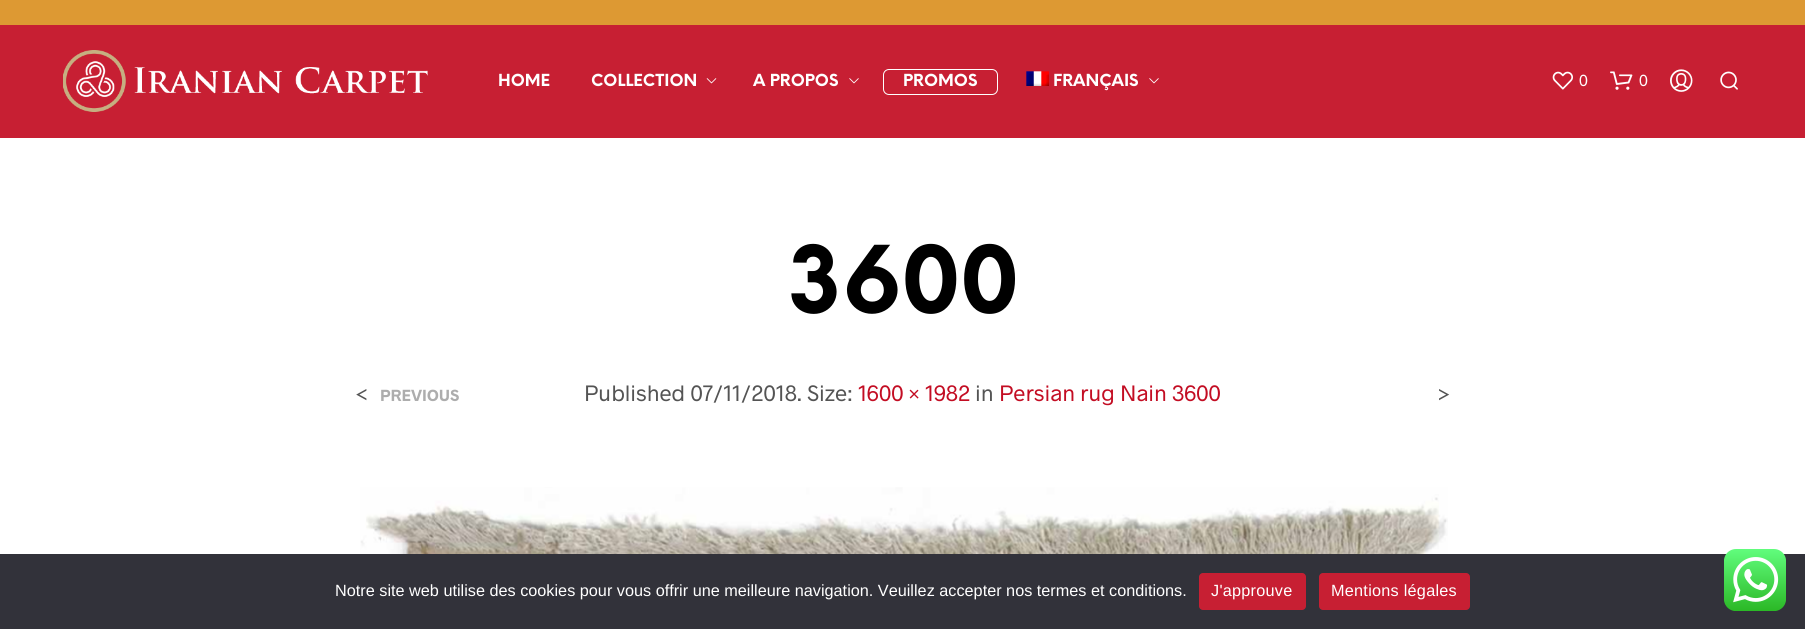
import math
import cairo


def use_color(cr, r, g, b):
  cr.set_source_rgb(r / 255, g / 255, b / 255)

def text(cr, x, y, s, family, size, color, bold=False, italic=False):
  cr.select_font_face(family, cairo.FONT_SLANT_ITALIC if italic else cairo.FONT_SLANT_NORMAL, cairo.FONT_WEIGHT_BOLD if bold else cairo.FONT_WEIGHT_NORMAL)
  cr.set_font_size(size)
  use_color(cr, *color)
  cr.move_to(x, y)
  cr.show_text(s)

def spaced_text(cr, x, y, s, letter, word):
  cr.move_to(x, y)
  for ch in s:
    cr.show_text(ch)
    cr.rel_move_to(letter + word * (ch == ' '), 0)

def box(cr, x, y, w, h, *color):
  use_color(cr, *color)
  cr.rectangle(x, y, w, h)
  cr.fill()

def round_rect(cr, x, y, w, h, r):
  cr.new_sub_path()
  for i, (u, v) in enumerate([(x + w - r, y + h - r), (x + r, y + h - r), (x + r, y + r), (x + w - r, y + r)]):
    cr.arc(u, v, r, i * math.pi / 2, (i + 1) * math.pi / 2)
  cr.close_path()

def picture(cr, path, x, y, w, h):
  cr.save()
  cr.set_source_surface(cairo.ImageSurface.create_from_png(path), x, y)
  cr.rectangle(x, y, w, h)
  cr.fill()
  cr.restore()

def draw(cr):
  use_color(cr, 255, 255, 255)
  cr.paint()
  box(cr, 0, 0, 1805, 25, 221, 153, 51)
  box(cr, 0, 25, 1805, 113, 199, 31, 51)
  picture(cr, "img_01.png", 63, 50, 365, 62)
  picture(cr, "img_02.png", 706, 78, 11, 6)
  picture(cr, "img_03.png", 849, 78, 10, 6)
  round_rect(cr, 883.5, 69.5, 114, 25, 5.5)
  use_color(cr, 255, 255, 255)
  cr.set_line_width(1)
  cr.stroke()
  picture(cr, "img_04.png", 1026, 71, 23, 15)
  picture(cr, "img_03.png", 1149, 78, 10, 6)
  picture(cr, "img_05.png", 1552, 71, 21, 19)
  picture(cr, "img_06.png", 1610, 71, 23, 19)
  picture(cr, "img_07.png", 1670, 69, 23, 23)
  picture(cr, "img_08.png", 1720, 71, 18, 19)
  picture(cr, "img_09.png", 360, 487, 1088, 67)
  box(cr, 0, 554, 1805, 75, 50, 50, 58)
  use_color(cr, 199, 31, 51)
  round_rect(cr, 1199, 573, 107, 37, 4)
  cr.fill()
  round_rect(cr, 1319, 573, 151, 37, 4)
  cr.fill()
  picture(cr, "img_10.png", 1724, 549, 62, 62)
  text(cr, 498, 86, "HOME", "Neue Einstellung", 16.25, (255, 255, 255), bold=True)
  text(cr, 591, 86, "COLLECTION", "Neue Einstellung", 16.25, (255, 255, 255), bold=True)
  text(cr, 753, 86, "A PROPOS", "Neue Einstellung", 16.25, (255, 255, 255), bold=True)
  text(cr, 903, 86, "PROMOS", "Neue Einstellung", 16.25, (255, 255, 255), bold=True)
  text(cr, 1053, 86, "FRANÇAIS", "Neue Einstellung", 16.25, (255, 255, 255), bold=True)
  text(cr, 1579, 86, "0", "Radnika", 16.25, (255, 255, 255))
  text(cr, 1639, 86, "0", "Radnika", 16.25, (255, 255, 255))
  text(cr, 787, 313, "3600", "Neue Einstellung", 91, (0, 0, 0), bold=True)
  text(cr, 584, 401, "Published 07/11/2018. Size:", "Radnika", 22.5, (84, 84, 84))
  text(cr, 858, 401, "1600 × 1982", "Radnika", 22.5, (195, 13, 35))
  text(cr, 975, 401, "in", "Radnika", 22.5, (84, 84, 84))
  text(cr, 999, 401, "Persian rug Nain 3600", "Radnika", 22.5, (195, 13, 35))
  text(cr, 355, 402, "<", "Radnika", 22.5, (84, 84, 84))
  text(cr, 380, 401, "PREVIOUS", "Radnika", 16.25, (173, 173, 173), bold=True)
  text(cr, 1437, 402, ">", "Radnika", 22.5, (84, 84, 84))
  text(cr, 335, 596, "Notre site web utilise des cookies pour vous offrir une meilleure navigation. Veuillez accepter nos termes et conditions.", "Liberation Sans", 16.25, (255, 255, 255))
  spaced_text(cr, 1211, 596, "J'approuve", 0.25, 0)
  spaced_text(cr, 1331, 596, "Mentions légales", 0.25, 0)


surface = cairo.ImageSurface(cairo.FORMAT_RGB24, 1805, 629)
cr = cairo.Context(surface)
options = cairo.FontOptions()
options.set_hint_metrics(cairo.HINT_METRICS_OFF)
options.set_hint_style(cairo.HINT_STYLE_NONE)
cr.set_font_options(options)
cr.set_miter_limit(4)
draw(cr)
surface.write_to_png("out.png")
